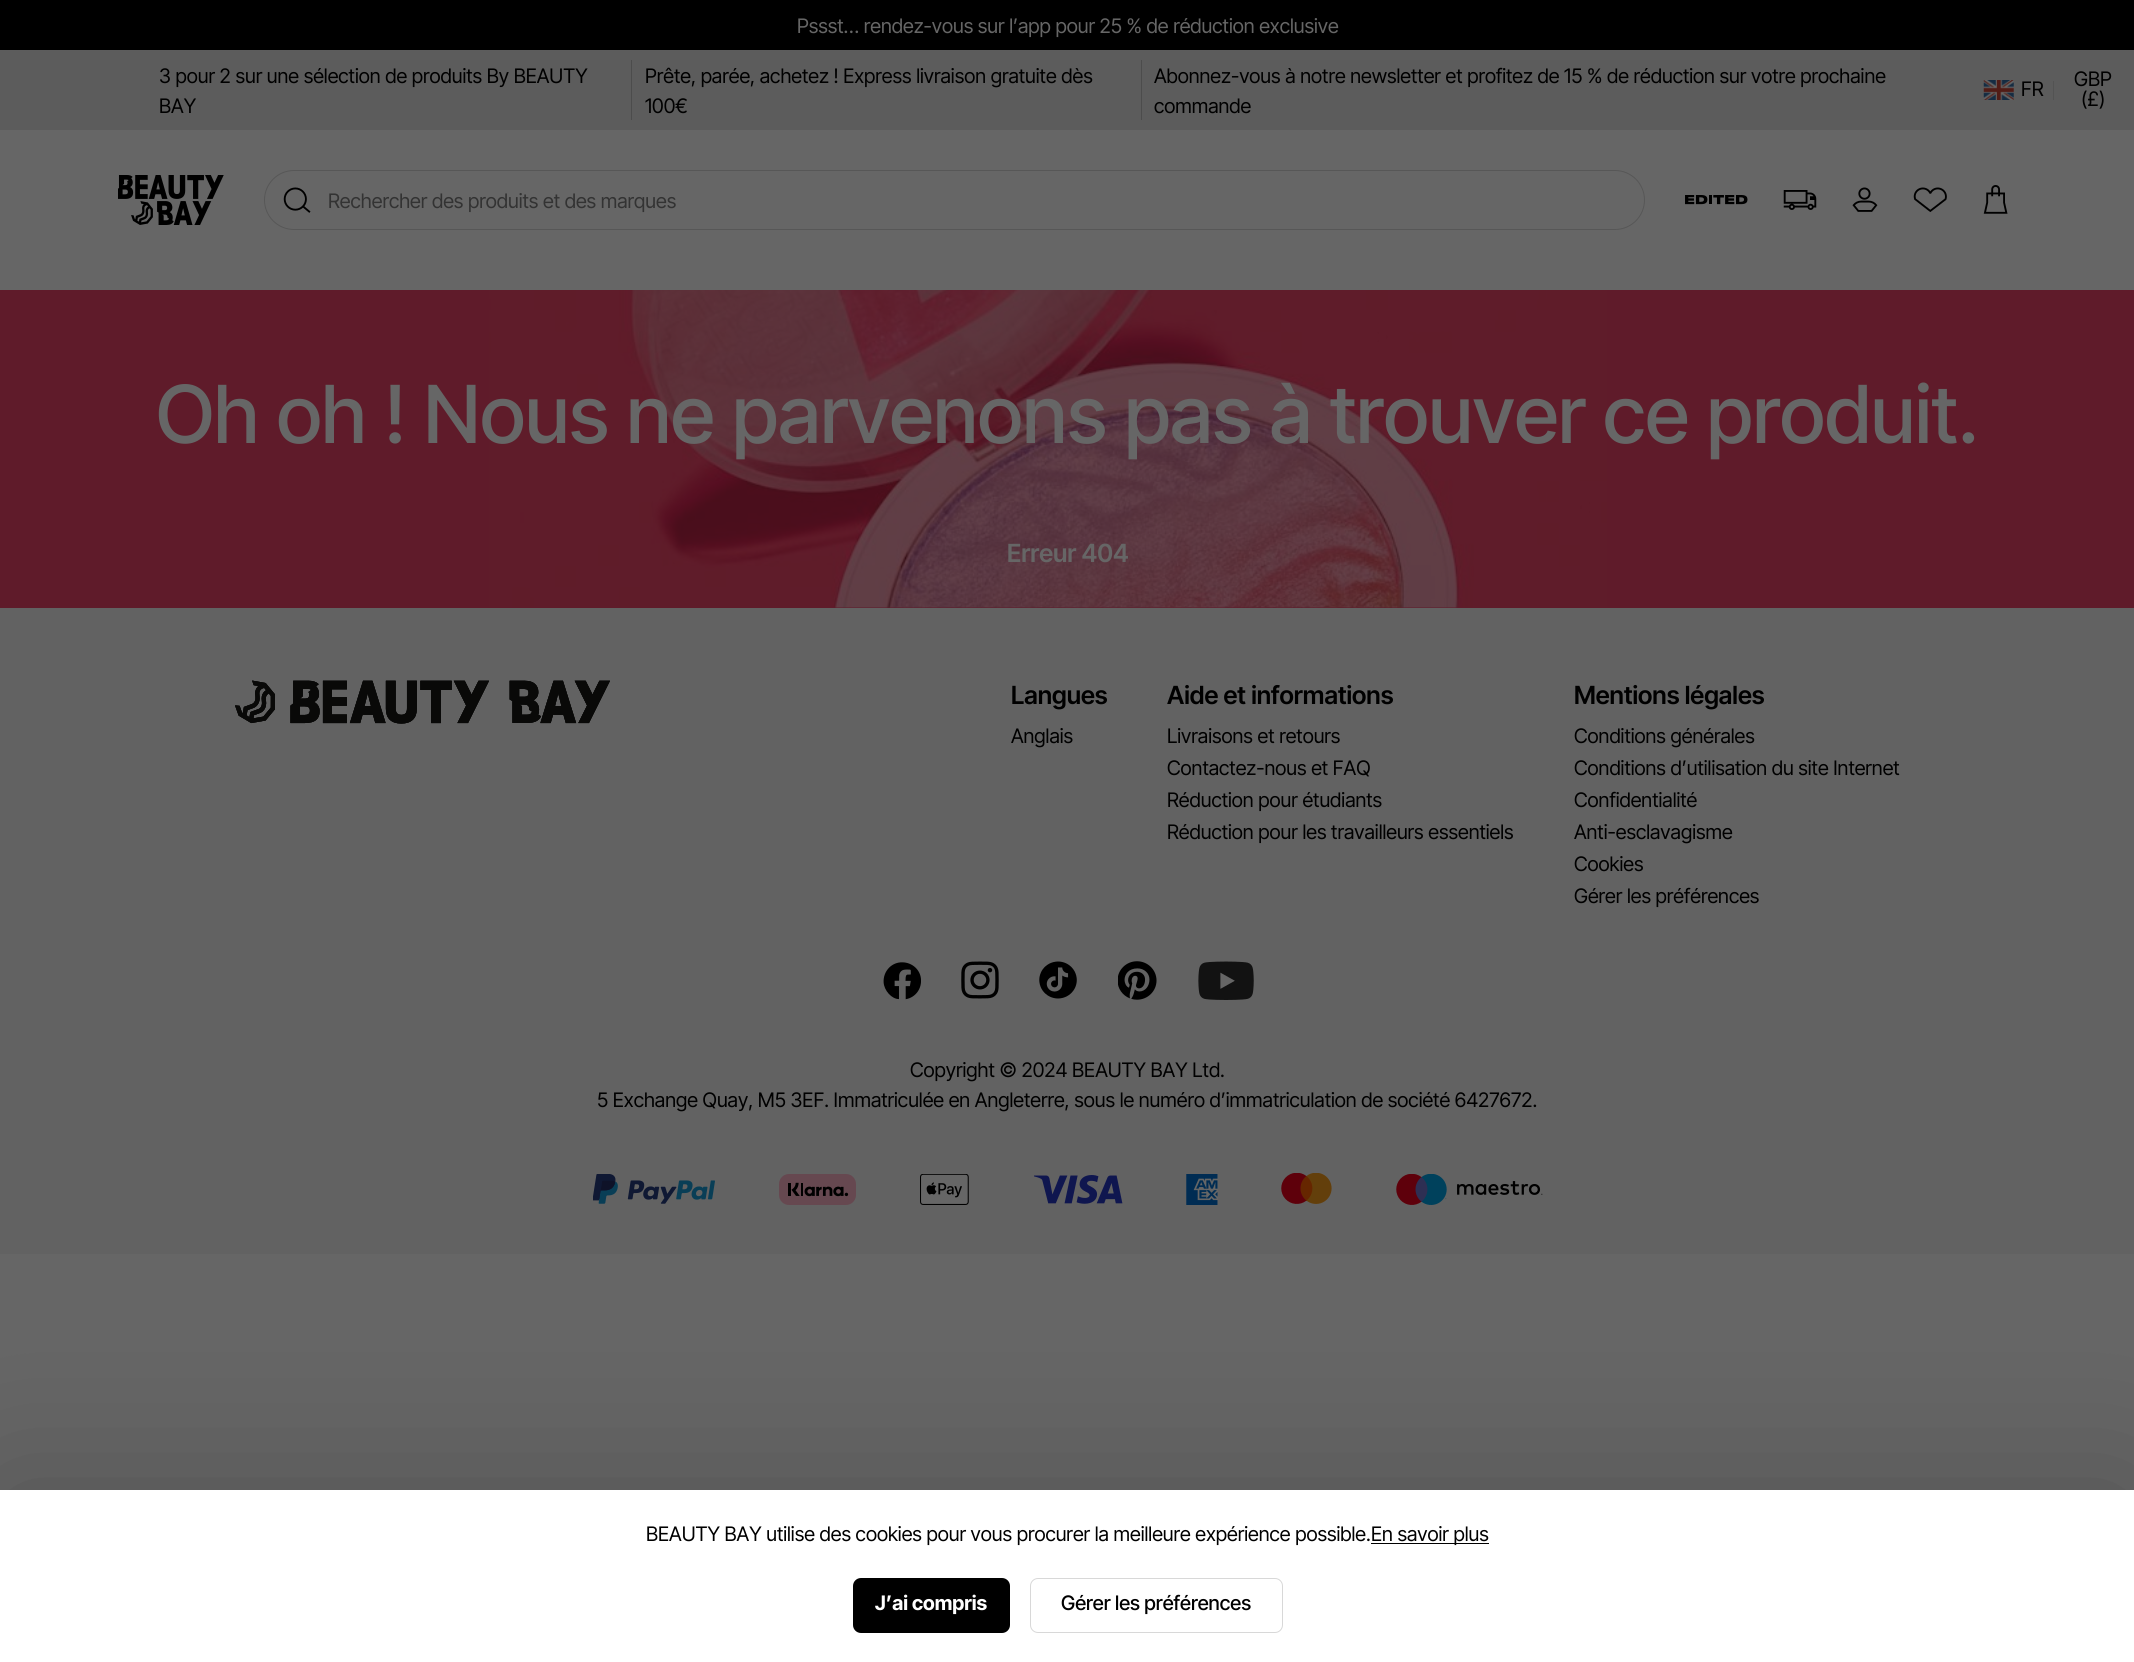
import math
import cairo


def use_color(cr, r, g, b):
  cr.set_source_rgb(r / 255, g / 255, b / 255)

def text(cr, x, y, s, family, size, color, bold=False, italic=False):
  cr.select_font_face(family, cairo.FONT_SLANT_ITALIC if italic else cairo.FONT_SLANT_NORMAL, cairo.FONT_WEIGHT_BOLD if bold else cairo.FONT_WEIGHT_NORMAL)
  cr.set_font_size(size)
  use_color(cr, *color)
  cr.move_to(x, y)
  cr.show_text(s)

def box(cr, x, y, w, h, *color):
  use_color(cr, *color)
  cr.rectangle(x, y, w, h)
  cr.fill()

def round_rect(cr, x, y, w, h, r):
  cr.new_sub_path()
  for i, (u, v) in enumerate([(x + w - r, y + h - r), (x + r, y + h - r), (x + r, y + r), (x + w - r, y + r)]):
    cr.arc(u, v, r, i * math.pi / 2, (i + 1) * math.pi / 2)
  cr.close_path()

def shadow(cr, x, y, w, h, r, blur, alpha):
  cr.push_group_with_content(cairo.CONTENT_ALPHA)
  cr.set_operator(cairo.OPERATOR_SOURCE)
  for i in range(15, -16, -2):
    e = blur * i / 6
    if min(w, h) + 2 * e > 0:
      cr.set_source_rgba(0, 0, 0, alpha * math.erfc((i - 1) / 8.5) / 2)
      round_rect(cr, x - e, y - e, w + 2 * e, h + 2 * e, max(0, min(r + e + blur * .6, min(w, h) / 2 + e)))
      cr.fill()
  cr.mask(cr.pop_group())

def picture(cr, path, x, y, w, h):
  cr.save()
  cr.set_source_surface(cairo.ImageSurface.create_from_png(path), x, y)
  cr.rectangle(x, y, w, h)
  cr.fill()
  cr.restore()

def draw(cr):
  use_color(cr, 102, 102, 102)
  cr.paint()
  box(cr, 0, 0, 2134, 50, 0, 0, 0)
  box(cr, 0, 50, 2134, 80, 92, 92, 92)
  box(cr, 631, 60, 1, 60, 76, 76, 76)
  box(cr, 1141, 60, 1, 60, 76, 76, 76)
  picture(cr, "img_01.png", 1983, 80, 31, 20)
  box(cr, 2053, 81, 1, 19, 83, 83, 83)
  picture(cr, "img_02.png", 118, 175, 106, 50)
  picture(cr, "img_03.png", 283, 187, 28, 26)
  round_rect(cr, 264.5, 170.5, 1380, 59, 29.5)
  use_color(cr, 87, 87, 87)
  cr.set_line_width(1)
  cr.stroke()
  picture(cr, "img_04.png", 1685, 195, 63, 10)
  picture(cr, "img_05.png", 1783, 190, 34, 20)
  picture(cr, "img_06.png", 1852, 187, 26, 25)
  picture(cr, "img_07.png", 1913, 187, 34, 25)
  picture(cr, "img_08.png", 1983, 185, 25, 29)
  box(cr, 0, 290, 2134, 318, 95, 27, 42)
  picture(cr, "img_09.png", 489, 290, 1118, 318)
  box(cr, 0, 608, 2134, 646, 98, 98, 98)
  picture(cr, "img_10.png", 235, 680, 375, 44)
  picture(cr, "img_11.png", 883, 962, 38, 38)
  picture(cr, "img_12.png", 961, 961, 38, 38)
  picture(cr, "img_13.png", 1039, 961, 38, 38)
  picture(cr, "img_14.png", 1118, 961, 39, 39)
  picture(cr, "img_15.png", 1198, 961, 56, 39)
  picture(cr, "img_16.png", 593, 1174, 122, 30)
  picture(cr, "img_17.png", 779, 1174, 77, 31)
  picture(cr, "img_18.png", 920, 1174, 49, 31)
  picture(cr, "img_19.png", 1034, 1175, 89, 29)
  picture(cr, "img_20.png", 1186, 1174, 32, 31)
  picture(cr, "img_21.png", 1281, 1173, 51, 31)
  picture(cr, "img_22.png", 1396, 1174, 147, 31)
  use_color(cr, 0, 0, 0)
  shadow(cr, 0, 1490, 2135, 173, 0, 75, 0.2)
  box(cr, 0, 1490, 2134, 172, 255, 255, 255)
  box(cr, 1371, 1543, 118, 1, 0, 0, 0)
  round_rect(cr, 854.5, 1579.5, 154, 52, 6.5)
  cr.fill_preserve()
  cr.set_line_width(3)
  cr.stroke()
  round_rect(cr, 1030.5, 1578.5, 252, 54, 7.5)
  use_color(cr, 216, 216, 216)
  cr.set_line_width(1)
  cr.stroke()
  text(cr, 797, 33, "Pssst… rendez-vous sur l’app pour 25 % de réduction exclusive", "Inter Tight", 20, (102, 102, 102))
  text(cr, 159, 83, "3 pour 2 sur une sélection de produits By BEAUTY", "Inter Tight", 20, (0, 0, 0))
  text(cr, 159, 113, "BAY", "Inter Tight", 20, (0, 0, 0))
  text(cr, 645, 83, "Prête, parée, achetez ! Express livraison gratuite dès", "Inter Tight", 20, (0, 0, 0))
  text(cr, 645, 113, "100€", "Inter Tight", 20, (0, 0, 0))
  text(cr, 1154, 83, "Abonnez-vous à notre newsletter et profitez de 15 % de réduction sur votre prochaine", "Inter Tight", 20, (0, 0, 0))
  text(cr, 1154, 113, "commande", "Inter Tight", 20, (0, 0, 0))
  text(cr, 2021, 96, "FR", "Inter Tight", 20, (0, 0, 0))
  text(cr, 2074, 86, "GBP", "Inter Tight", 20, (0, 0, 0))
  text(cr, 2081, 106, "(£)", "Inter Tight", 20, (0, 0, 0))
  text(cr, 328, 208, "Rechercher des produits et des marques", "Inter Tight", 20, (51, 51, 51))
  text(cr, 156, 443, "Oh oh ! Nous ne parvenons pas à trouver ce produit.", "Inter Tight Medium", 80, (102, 102, 102))
  text(cr, 1007, 562, "Erreur 404", "Inter Tight SemiBold", 25, (102, 102, 102))
  text(cr, 1011, 704, "Langues", "Inter Tight SemiBold", 25, (0, 0, 0))
  text(cr, 1011, 743, "Anglais", "Inter Tight", 20, (0, 0, 0))
  text(cr, 1167, 704, "Aide et informations", "Inter Tight SemiBold", 25, (0, 0, 0))
  text(cr, 1167, 743, "Livraisons et retours", "Inter Tight", 20, (0, 0, 0))
  text(cr, 1167, 775, "Contactez-nous et FAQ", "Inter Tight", 20, (0, 0, 0))
  text(cr, 1167, 807, "Réduction pour étudiants", "Inter Tight", 20, (0, 0, 0))
  text(cr, 1167, 839, "Réduction pour les travailleurs essentiels", "Inter Tight", 20, (0, 0, 0))
  text(cr, 1574, 704, "Mentions légales", "Inter Tight SemiBold", 25, (0, 0, 0))
  text(cr, 1574, 743, "Conditions générales", "Inter Tight", 20, (0, 0, 0))
  text(cr, 1574, 775, "Conditions d’utilisation du site Internet", "Inter Tight", 20, (0, 0, 0))
  text(cr, 1574, 807, "Confidentialité", "Inter Tight", 20, (0, 0, 0))
  text(cr, 1574, 839, "Anti-esclavagisme", "Inter Tight", 20, (0, 0, 0))
  text(cr, 1574, 871, "Cookies", "Inter Tight", 20, (0, 0, 0))
  text(cr, 1574, 903, "Gérer les préférences", "Inter Tight", 20, (0, 0, 0))
  text(cr, 910, 1077, "Copyright © 2024 BEAUTY BAY Ltd.", "Inter Tight", 20, (0, 0, 0))
  text(cr, 597, 1107, "5 Exchange Quay, M5 3EF. Immatriculée en Angleterre, sous le numéro d’immatriculation de société 6427672.", "Inter Tight", 20, (0, 0, 0))
  text(cr, 646, 1541, "BEAUTY BAY utilise des cookies pour vous procurer la meilleure expérience possible.", "Inter Tight", 20, (0, 0, 0))
  text(cr, 1371, 1541, "En savoir plus", "Inter Tight", 20, (0, 0, 0))
  text(cr, 875, 1610, "J’ai compris", "Inter Tight", 20, (255, 255, 255), bold=True)
  text(cr, 1061, 1610, "Gérer les préférences", "Inter Tight Medium", 20, (0, 0, 0))


surface = cairo.ImageSurface(cairo.FORMAT_RGB24, 2134, 1662)
cr = cairo.Context(surface)
options = cairo.FontOptions()
options.set_hint_metrics(cairo.HINT_METRICS_OFF)
options.set_hint_style(cairo.HINT_STYLE_NONE)
cr.set_font_options(options)
cr.set_miter_limit(4)
draw(cr)
surface.write_to_png("out.png")
